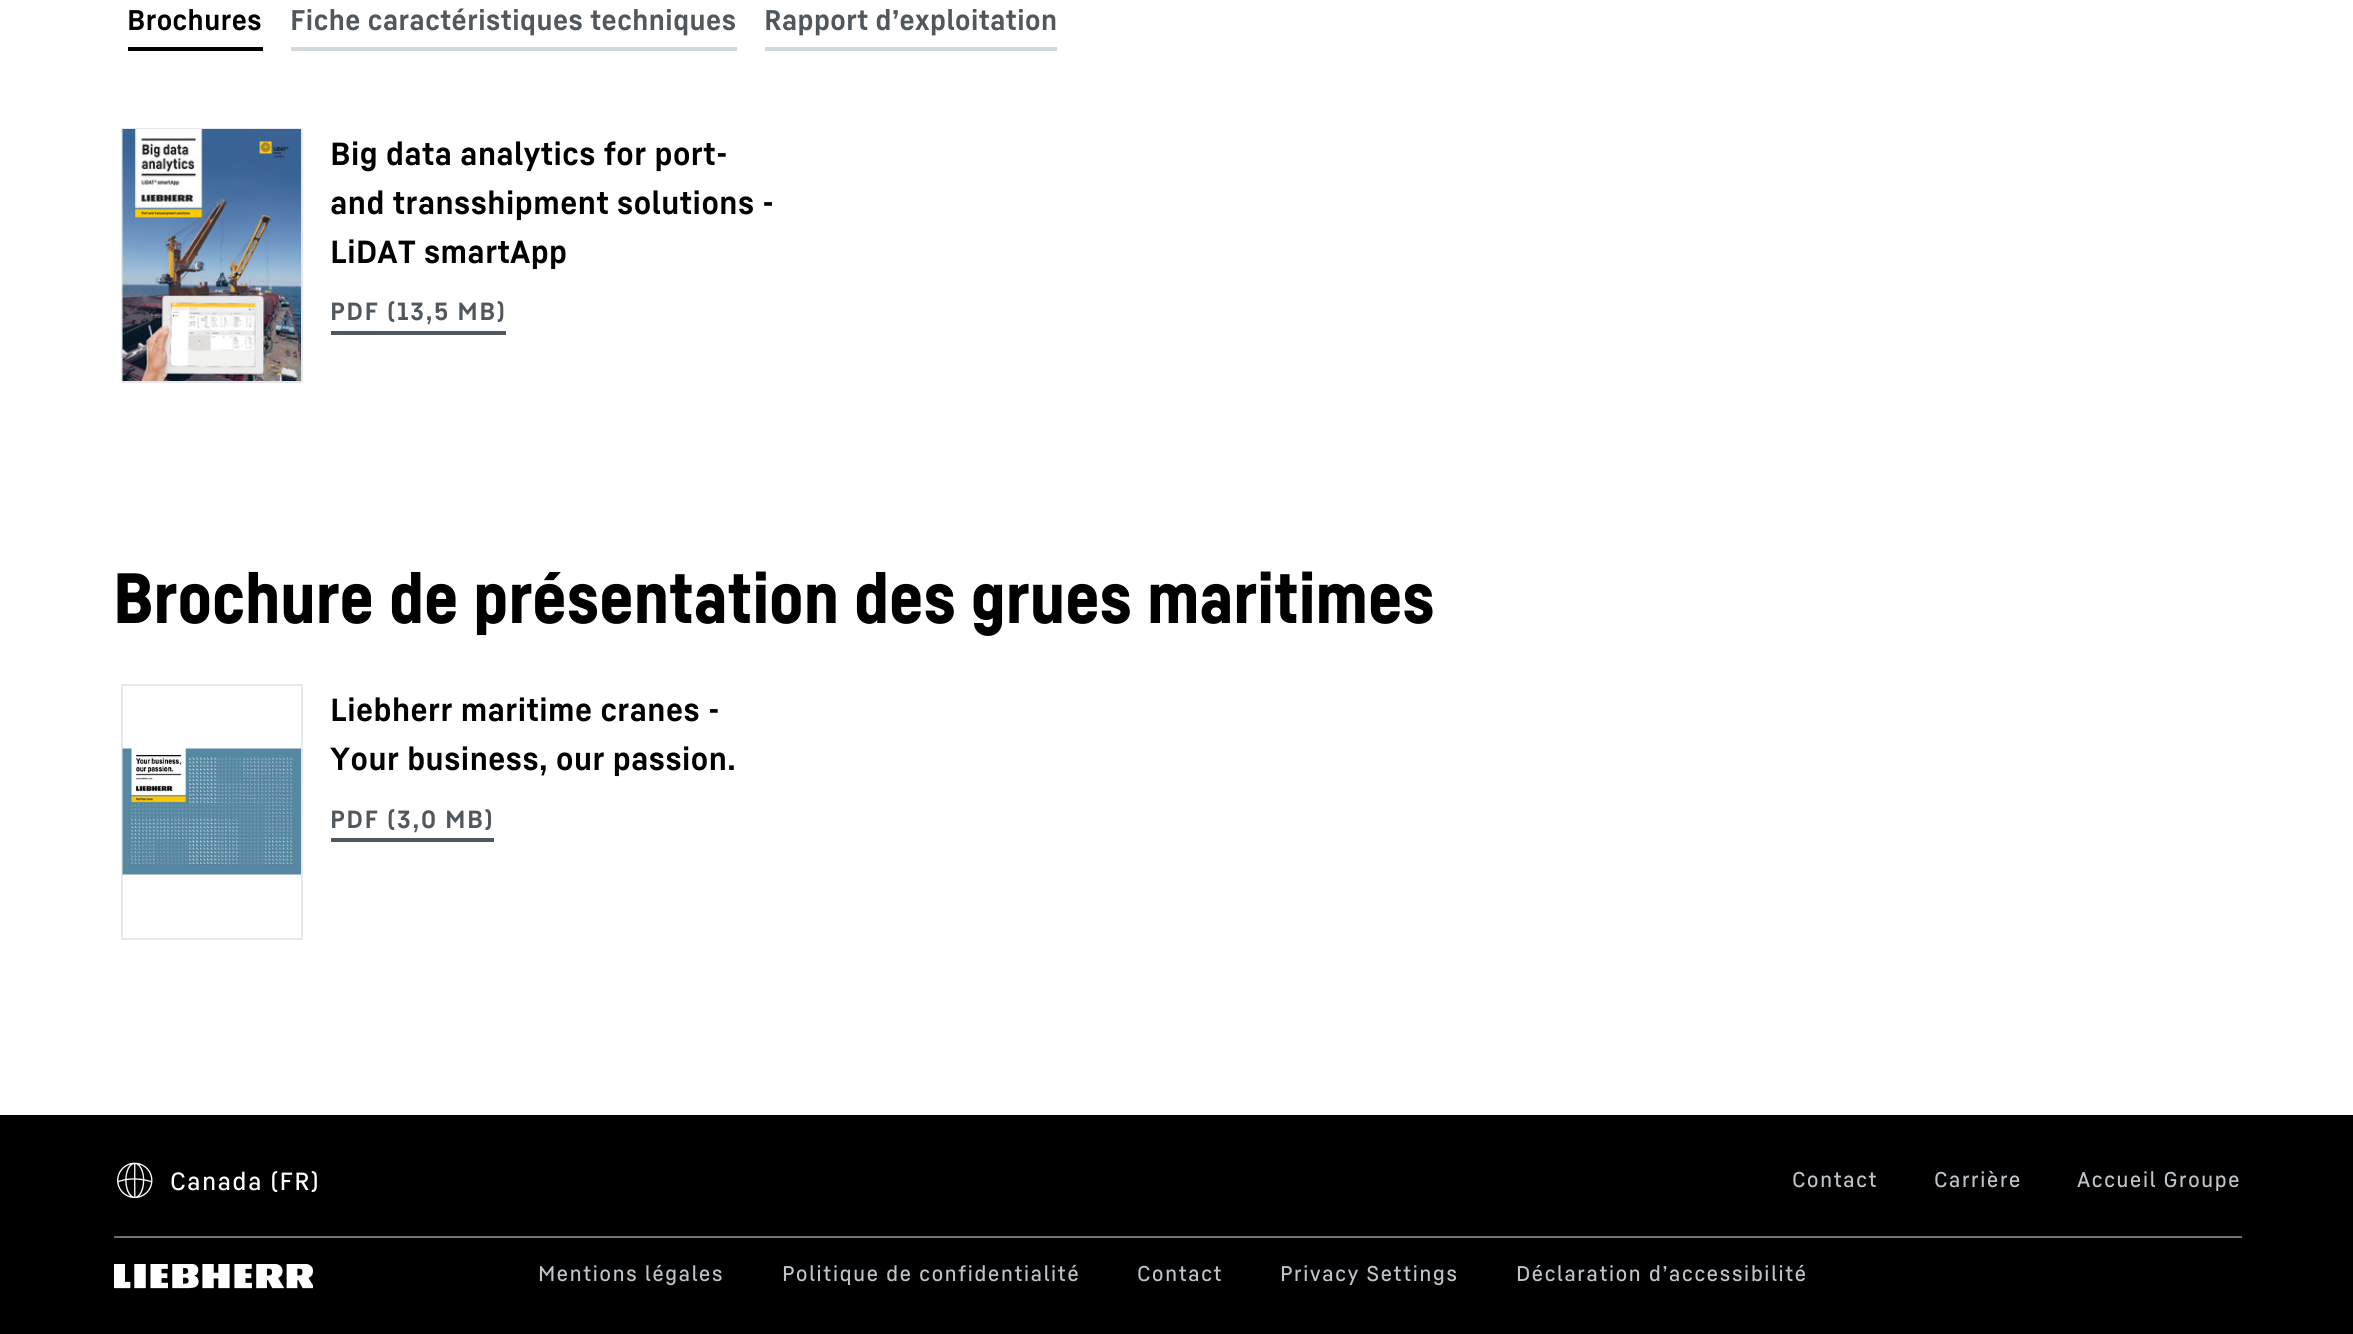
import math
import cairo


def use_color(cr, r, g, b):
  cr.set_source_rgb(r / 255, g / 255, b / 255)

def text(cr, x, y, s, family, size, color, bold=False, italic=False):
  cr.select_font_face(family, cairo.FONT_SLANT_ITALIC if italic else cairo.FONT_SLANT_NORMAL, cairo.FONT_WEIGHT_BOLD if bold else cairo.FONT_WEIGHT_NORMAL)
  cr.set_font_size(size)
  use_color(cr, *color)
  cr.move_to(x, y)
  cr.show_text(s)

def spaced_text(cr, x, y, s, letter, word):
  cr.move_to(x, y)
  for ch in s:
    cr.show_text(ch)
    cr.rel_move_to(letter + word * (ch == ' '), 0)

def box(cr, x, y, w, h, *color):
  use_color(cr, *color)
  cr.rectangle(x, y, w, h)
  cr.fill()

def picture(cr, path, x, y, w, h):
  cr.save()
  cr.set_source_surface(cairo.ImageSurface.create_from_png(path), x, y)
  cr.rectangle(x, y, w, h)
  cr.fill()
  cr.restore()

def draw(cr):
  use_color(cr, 255, 255, 255)
  cr.paint()
  box(cr, 128, 47, 135, 4, 0, 0, 0)
  box(cr, 291, 47, 446, 4, 211, 216, 221)
  box(cr, 765, 47, 292, 4, 211, 216, 221)
  cr.rectangle(122, 129, 180, 253)
  use_color(cr, 229, 232, 237)
  cr.stroke()
  picture(cr, "img_01.png", 122, 129, 179, 252)
  box(cr, 331, 331, 175, 4, 81, 88, 93)
  cr.rectangle(122, 685, 180, 254)
  use_color(cr, 229, 232, 237)
  cr.stroke()
  picture(cr, "img_02.png", 122, 748, 179, 127)
  box(cr, 331, 838, 163, 4, 81, 88, 93)
  box(cr, 0, 1115, 2353, 219, 0, 0, 0)
  picture(cr, "img_03.png", 117, 1162, 36, 37)
  box(cr, 114, 1236, 2128, 2, 107, 114, 120)
  picture(cr, "img_04.png", 114, 1264, 199, 25)
  text(cr, 127, 30, "Brochures", "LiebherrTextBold", 28, (0, 0, 0), bold=True)
  text(cr, 290, 30, "Fiche caractéristiques techniques", "LiebherrTextBold", 28, (81, 88, 93), bold=True)
  text(cr, 764, 30, "Rapport d’exploitation", "LiebherrTextBold", 28, (81, 88, 93), bold=True)
  text(cr, 330, 165, "Big data analytics for port-", "LiebherrTextBold", 31.5, (0, 0, 0), bold=True)
  text(cr, 330, 214, "and transshipment solutions -", "LiebherrTextBold", 31.5, (0, 0, 0), bold=True)
  text(cr, 330, 263, "LiDAT smartApp", "LiebherrTextBold", 31.5, (0, 0, 0), bold=True)
  cr.set_font_size(24.5)
  use_color(cr, 81, 88, 93)
  spaced_text(cr, 330, 320, "PDF (13,5 MB)", 1.4, 0)
  text(cr, 113, 623, "Brochure de présentation des grues maritimes", "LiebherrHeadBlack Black", 70, (0, 0, 0))
  text(cr, 330, 721, "Liebherr maritime cranes -", "LiebherrTextBold", 31.5, (0, 0, 0), bold=True)
  text(cr, 330, 770, "Your business, our passion.", "LiebherrTextBold", 31.5, (0, 0, 0), bold=True)
  cr.set_font_size(24.5)
  use_color(cr, 81, 88, 93)
  spaced_text(cr, 330, 828, "PDF (3,0 MB)", 1.4, 0)
  cr.select_font_face("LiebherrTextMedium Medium")
  use_color(cr, 255, 255, 255)
  spaced_text(cr, 170, 1190, "Canada (FR)", 1.25, 0)
  cr.set_font_size(21)
  use_color(cr, 189, 196, 202)
  spaced_text(cr, 1792, 1187, "Contact", 1.25, 0)
  spaced_text(cr, 1934, 1187, "Carrière", 1.25, 0)
  spaced_text(cr, 2077, 1187, "Accueil Groupe", 1.25, 0)
  spaced_text(cr, 538, 1281, "Mentions légales", 1.25, 0)
  spaced_text(cr, 782, 1281, "Politique de confidentialité", 1.25, 0)
  spaced_text(cr, 1137, 1281, "Contact", 1.25, 0)
  spaced_text(cr, 1280, 1281, "Privacy Settings", 1.25, 0)
  spaced_text(cr, 1516, 1281, "Déclaration d’accessibilité", 1.25, 0)


surface = cairo.ImageSurface(cairo.FORMAT_RGB24, 2353, 1334)
cr = cairo.Context(surface)
options = cairo.FontOptions()
options.set_hint_metrics(cairo.HINT_METRICS_OFF)
options.set_hint_style(cairo.HINT_STYLE_NONE)
cr.set_font_options(options)
cr.set_miter_limit(4)
draw(cr)
surface.write_to_png("out.png")
